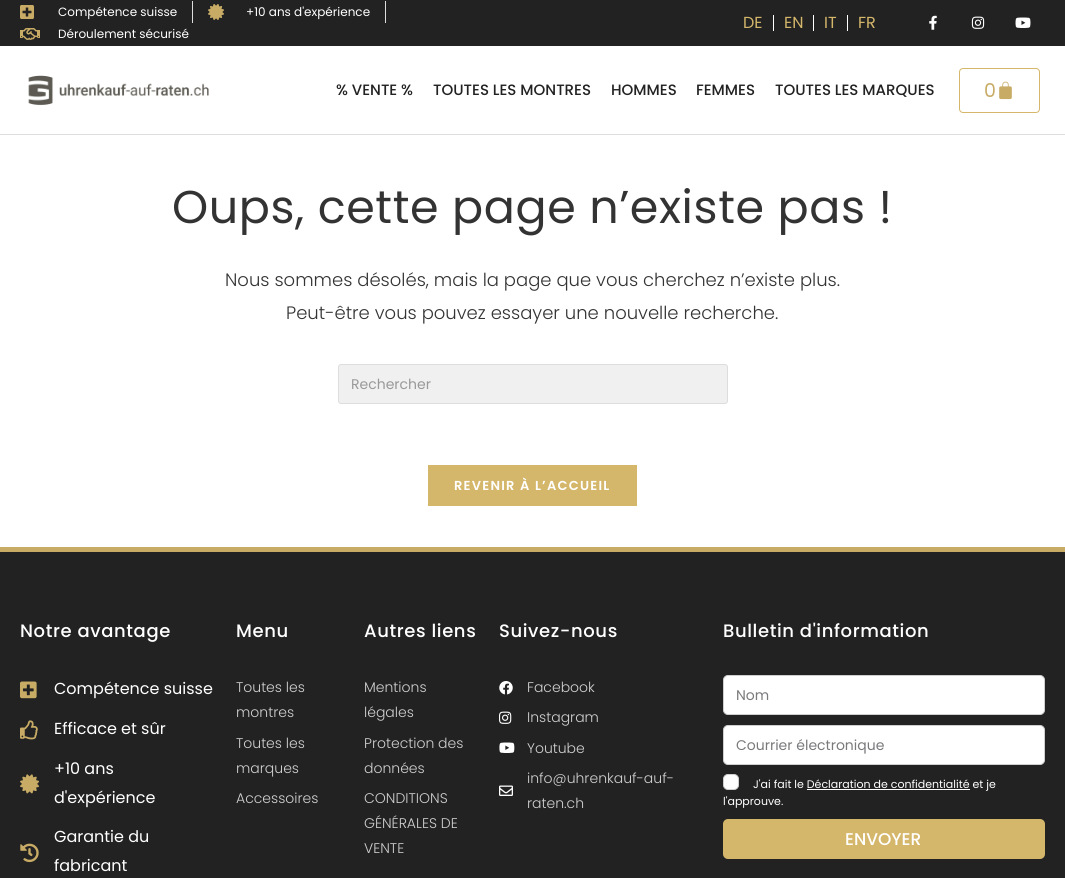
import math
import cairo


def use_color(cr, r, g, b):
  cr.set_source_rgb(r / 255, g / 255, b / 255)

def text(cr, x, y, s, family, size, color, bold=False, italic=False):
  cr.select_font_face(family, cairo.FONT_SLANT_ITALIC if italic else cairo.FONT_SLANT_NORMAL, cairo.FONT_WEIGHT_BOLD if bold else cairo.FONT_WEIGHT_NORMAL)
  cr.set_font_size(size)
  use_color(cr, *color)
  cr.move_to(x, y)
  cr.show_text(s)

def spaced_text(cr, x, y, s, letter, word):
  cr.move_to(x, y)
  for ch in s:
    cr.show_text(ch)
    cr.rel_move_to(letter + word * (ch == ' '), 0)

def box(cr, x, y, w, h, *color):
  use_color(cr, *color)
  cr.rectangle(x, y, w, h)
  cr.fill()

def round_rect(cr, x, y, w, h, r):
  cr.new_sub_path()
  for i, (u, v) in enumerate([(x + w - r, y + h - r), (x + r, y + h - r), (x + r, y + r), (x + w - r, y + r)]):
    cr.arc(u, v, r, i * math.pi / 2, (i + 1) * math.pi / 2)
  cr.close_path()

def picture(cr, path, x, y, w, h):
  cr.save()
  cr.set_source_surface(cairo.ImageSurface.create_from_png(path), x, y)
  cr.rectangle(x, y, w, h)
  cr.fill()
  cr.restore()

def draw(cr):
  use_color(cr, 255, 255, 255)
  cr.paint()
  box(cr, 0, 0, 1065, 46, 34, 34, 34)
  picture(cr, "img_01.png", 20, 5, 14, 14)
  box(cr, 192, 1, 1, 22, 221, 221, 221)
  picture(cr, "img_02.png", 208, 4, 16, 16)
  box(cr, 385, 1, 1, 22, 221, 221, 221)
  picture(cr, "img_03.png", 20, 28, 20, 12)
  box(cr, 773, 15, 1, 16, 255, 255, 255)
  box(cr, 813, 15, 1, 16, 255, 255, 255)
  box(cr, 847, 15, 1, 16, 255, 255, 255)
  picture(cr, "img_04.png", 929, 15, 8, 15)
  picture(cr, "img_05.png", 971, 16, 14, 13)
  picture(cr, "img_06.png", 1015, 17, 16, 11)
  box(cr, 0, 134, 1065, 1, 221, 221, 221)
  picture(cr, "img_07.png", 28, 75, 181, 31)
  round_rect(cr, 959.5, 68.5, 80, 44, 3.5)
  use_color(cr, 213, 183, 107)
  cr.set_line_width(1)
  cr.stroke()
  picture(cr, "img_08.png", 999, 81, 13, 19)
  use_color(cr, 240, 240, 240)
  round_rect(cr, 338.5, 364.5, 389, 39, 2.5)
  cr.fill_preserve()
  use_color(cr, 221, 221, 221)
  cr.stroke()
  box(cr, 428, 465, 209, 41, 213, 183, 107)
  box(cr, 0, 552, 1065, 326, 34, 34, 34)
  box(cr, 0, 547, 1065, 5, 200, 172, 102)
  picture(cr, "img_09.png", 20, 681, 17, 18)
  picture(cr, "img_10.png", 20, 720, 18, 20)
  picture(cr, "img_11.png", 20, 774, 19, 20)
  picture(cr, "img_12.png", 20, 843, 19, 20)
  picture(cr, "img_13.png", 499, 681, 14, 14)
  picture(cr, "img_14.png", 499, 711, 13, 13)
  picture(cr, "img_15.png", 499, 742, 16, 11)
  picture(cr, "img_16.png", 499, 785, 14, 11)
  use_color(cr, 255, 255, 255)
  round_rect(cr, 723.5, 675.5, 321, 39, 4.5)
  cr.fill_preserve()
  use_color(cr, 207, 207, 207)
  cr.stroke()
  use_color(cr, 255, 255, 255)
  round_rect(cr, 723.5, 725.5, 321, 39, 4.5)
  cr.fill_preserve()
  use_color(cr, 207, 207, 207)
  cr.stroke()
  use_color(cr, 255, 255, 255)
  round_rect(cr, 723.5, 774.5, 15, 15, 4.5)
  cr.fill_preserve()
  use_color(cr, 207, 207, 207)
  cr.stroke()
  box(cr, 807, 789, 163, 1, 255, 255, 255)
  use_color(cr, 213, 183, 107)
  round_rect(cr, 723, 819, 322, 40, 5)
  cr.fill()
  text(cr, 58, 16, "Compétence suisse", "Poppins", 12, (255, 255, 255))
  text(cr, 246, 16, "+10 ans d'expérience", "Poppins", 12, (255, 255, 255))
  text(cr, 58, 38, "Déroulement sécurisé", "Poppins", 12, (255, 255, 255))
  text(cr, 743, 28, "DE", "Poppins", 16, (213, 183, 107))
  text(cr, 784, 28, "EN", "Poppins", 16, (213, 183, 107))
  text(cr, 824, 28, "IT", "Poppins", 16, (213, 183, 107))
  text(cr, 858, 28, "FR", "Poppins", 16, (213, 183, 107))
  text(cr, 336, 95, "% VENTE %", "Poppins Medium", 15, (34, 34, 34))
  text(cr, 433, 95, "TOUTES LES MONTRES", "Poppins Medium", 15, (34, 34, 34))
  text(cr, 611, 95, "HOMMES", "Poppins Medium", 15, (34, 34, 34))
  text(cr, 696, 95, "FEMMES", "Poppins Medium", 15, (34, 34, 34))
  text(cr, 775, 95, "TOUTES LES MARQUES", "Poppins Medium", 15, (34, 34, 34))
  text(cr, 984, 97, "0", "Poppins", 19, (200, 172, 102))
  cr.set_font_size(46)
  use_color(cr, 51, 51, 51)
  spaced_text(cr, 172, 223, "Oups, cette page n’existe pas !", 0.6, 0)
  text(cr, 225, 286, "Nous sommes désolés, mais la page que vous cherchez n’existe plus.", "Poppins Light", 18, (51, 51, 51))
  text(cr, 286, 319, "Peut-être vous pouvez essayer une nouvelle recherche.", "Poppins Light", 18, (51, 51, 51))
  text(cr, 351, 389, "Rechercher", "Poppins", 14, (153, 153, 153))
  cr.select_font_face("Poppins SemiBold")
  cr.set_font_size(13)
  use_color(cr, 255, 255, 255)
  spaced_text(cr, 454, 490, "REVENIR À L’ACCUEIL", 1.25, 0)
  cr.select_font_face("Poppins Medium")
  cr.set_font_size(18)
  spaced_text(cr, 20, 637, "Notre avantage", 0.6, 0)
  text(cr, 54, 694, "Compétence suisse", "Poppins", 16, (255, 255, 255))
  text(cr, 54, 734, "Efficace et sûr", "Poppins", 16, (255, 255, 255))
  text(cr, 54, 774, "+10 ans", "Poppins", 16, (255, 255, 255))
  text(cr, 54, 803, "d'expérience", "Poppins", 16, (255, 255, 255))
  text(cr, 54, 842, "Garantie du", "Poppins", 16, (255, 255, 255))
  text(cr, 54, 871, "fabricant", "Poppins", 16, (255, 255, 255))
  cr.select_font_face("Poppins Medium")
  cr.set_font_size(18)
  spaced_text(cr, 236, 637, "Menu", 0.6, 0)
  text(cr, 236, 692, "Toutes les", "Poppins Light", 14, (209, 209, 209))
  text(cr, 236, 717, "montres", "Poppins Light", 14, (209, 209, 209))
  text(cr, 236, 748, "Toutes les", "Poppins Light", 14, (209, 209, 209))
  text(cr, 236, 773, "marques", "Poppins Light", 14, (209, 209, 209))
  text(cr, 236, 803, "Accessoires", "Poppins Light", 14, (209, 209, 209))
  cr.select_font_face("Poppins Medium")
  cr.set_font_size(18)
  use_color(cr, 255, 255, 255)
  spaced_text(cr, 364, 637, "Autres liens", 0.6, 0)
  text(cr, 364, 692, "Mentions", "Poppins Light", 14, (209, 209, 209))
  text(cr, 364, 717, "légales", "Poppins Light", 14, (209, 209, 209))
  text(cr, 364, 748, "Protection des", "Poppins Light", 14, (209, 209, 209))
  text(cr, 364, 773, "données", "Poppins Light", 14, (209, 209, 209))
  text(cr, 364, 803, "CONDITIONS", "Poppins Light", 14, (209, 209, 209))
  text(cr, 364, 828, "GÉNÉRALES DE", "Poppins Light", 14, (209, 209, 209))
  text(cr, 364, 853, "VENTE", "Poppins Light", 14, (209, 209, 209))
  cr.select_font_face("Poppins Medium")
  cr.set_font_size(18)
  use_color(cr, 255, 255, 255)
  spaced_text(cr, 499, 637, "Suivez-nous", 0.6, 0)
  text(cr, 527, 692, "Facebook", "Poppins Light", 14, (209, 209, 209))
  text(cr, 527, 722, "Instagram", "Poppins Light", 14, (209, 209, 209))
  text(cr, 527, 753, "Youtube", "Poppins Light", 14, (209, 209, 209))
  text(cr, 527, 783, "info@uhrenkauf-auf-", "Poppins Light", 14, (209, 209, 209))
  text(cr, 527, 808, "raten.ch", "Poppins Light", 14, (209, 209, 209))
  cr.select_font_face("Poppins Medium")
  cr.set_font_size(18)
  use_color(cr, 255, 255, 255)
  spaced_text(cr, 723, 637, "Bulletin d'information", 0.6, 0)
  text(cr, 736, 700, "Nom", "Poppins", 14, (121, 122, 124))
  text(cr, 736, 750, "Courrier électronique", "Poppins", 14, (121, 122, 124))
  text(cr, 753, 788, "J'ai fait le Déclaration de confidentialité et je", "Poppins", 11, (255, 255, 255))
  text(cr, 723, 805, "l'approuve.", "Poppins", 11, (255, 255, 255))
  text(cr, 845, 845, "ENVOYER", "Poppins Medium", 17, (255, 255, 255))


surface = cairo.ImageSurface(cairo.FORMAT_RGB24, 1065, 878)
cr = cairo.Context(surface)
options = cairo.FontOptions()
options.set_hint_metrics(cairo.HINT_METRICS_OFF)
options.set_hint_style(cairo.HINT_STYLE_NONE)
cr.set_font_options(options)
cr.set_miter_limit(4)
draw(cr)
surface.write_to_png("out.png")
